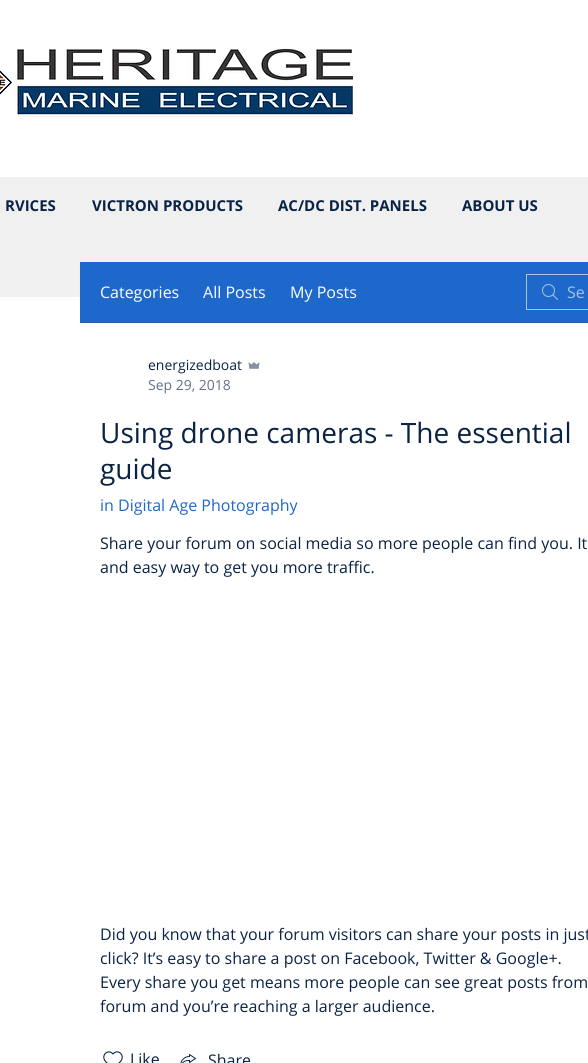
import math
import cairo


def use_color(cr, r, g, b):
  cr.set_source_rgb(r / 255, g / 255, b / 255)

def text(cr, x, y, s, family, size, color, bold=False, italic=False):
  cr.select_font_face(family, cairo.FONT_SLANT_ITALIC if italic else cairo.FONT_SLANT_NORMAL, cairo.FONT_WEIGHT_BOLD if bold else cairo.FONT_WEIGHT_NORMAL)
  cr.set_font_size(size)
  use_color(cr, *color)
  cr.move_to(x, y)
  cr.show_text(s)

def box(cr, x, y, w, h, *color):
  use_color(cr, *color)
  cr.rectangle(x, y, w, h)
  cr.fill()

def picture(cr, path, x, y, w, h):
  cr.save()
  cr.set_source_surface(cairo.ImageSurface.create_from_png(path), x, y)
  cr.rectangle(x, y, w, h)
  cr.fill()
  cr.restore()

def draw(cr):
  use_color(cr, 255, 255, 255)
  cr.paint()
  picture(cr, "img_01.png", 0, 48, 353, 69)
  box(cr, 0, 177, 588, 85, 240, 240, 240)
  box(cr, 0, 262, 80, 35, 240, 240, 240)
  box(cr, 80, 262, 508, 60, 30, 104, 203)
  box(cr, 80, 322, 508, 1, 37, 96, 175)
  picture(cr, "img_02.png", 542, 284, 16, 16)
  cr.rectangle(526.5, 274.5, 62, 35)
  use_color(cr, 165, 195, 234)
  cr.set_line_width(1)
  cr.stroke()
  picture(cr, "img_03.png", 248, 362, 12, 7)
  picture(cr, "img_04.png", 103, 1051, 20, 12)
  picture(cr, "img_05.png", 180, 1054, 16, 9)
  text(cr, 5, 211, "RVICES", "Open Sans", 15, (10, 35, 68), bold=True)
  text(cr, 92, 211, "VICTRON PRODUCTS", "Open Sans", 15, (10, 35, 68), bold=True)
  text(cr, 278, 211, "AC/DC DIST. PANELS", "Open Sans", 15, (10, 35, 68), bold=True)
  text(cr, 462, 211, "ABOUT US", "Open Sans", 15, (10, 35, 68), bold=True)
  text(cr, 100, 298, "Categories", "Open Sans", 16, (255, 255, 255))
  text(cr, 203, 298, "All Posts", "Open Sans", 16, (255, 255, 255))
  text(cr, 290, 298, "My Posts", "Open Sans", 16, (255, 255, 255))
  text(cr, 567, 298, "Se", "Open Sans", 16, (165, 195, 234))
  text(cr, 148, 370, "energizedboat", "Open Sans", 14, (10, 35, 68))
  text(cr, 148, 390, "Sep 29, 2018", "Open Sans", 14, (98, 114, 135))
  text(cr, 100, 443, "Using drone cameras - The essential", "Open Sans", 28, (10, 35, 68))
  text(cr, 100, 479, "guide", "Open Sans", 28, (10, 35, 68))
  text(cr, 100, 511, "in Digital Age Photography", "Open Sans", 16, (30, 104, 203))
  text(cr, 100, 549, "Share your forum on social media so more people can find you. It", "Open Sans", 16, (10, 35, 68))
  text(cr, 100, 573, "and easy way to get you more traffic.", "Open Sans", 16, (10, 35, 68))
  text(cr, 100, 940, "Did you know that your forum visitors can share your posts in just", "Open Sans", 16, (10, 35, 68))
  text(cr, 100, 964, "click? It’s easy to share a post on Facebook, Twitter & Google+.", "Open Sans", 16, (10, 35, 68))
  text(cr, 100, 988, "Every share you get means more people can see great posts from", "Open Sans", 16, (10, 35, 68))
  text(cr, 100, 1012, "forum and you’re reaching a larger audience.", "Open Sans", 16, (10, 35, 68))
  text(cr, 130, 1065, "Like", "Open Sans", 16, (10, 35, 68))
  text(cr, 208, 1066, "Share", "Open Sans", 16, (10, 35, 68))


surface = cairo.ImageSurface(cairo.FORMAT_RGB24, 588, 1063)
cr = cairo.Context(surface)
options = cairo.FontOptions()
options.set_hint_metrics(cairo.HINT_METRICS_OFF)
options.set_hint_style(cairo.HINT_STYLE_NONE)
cr.set_font_options(options)
cr.set_miter_limit(4)
draw(cr)
surface.write_to_png("out.png")
